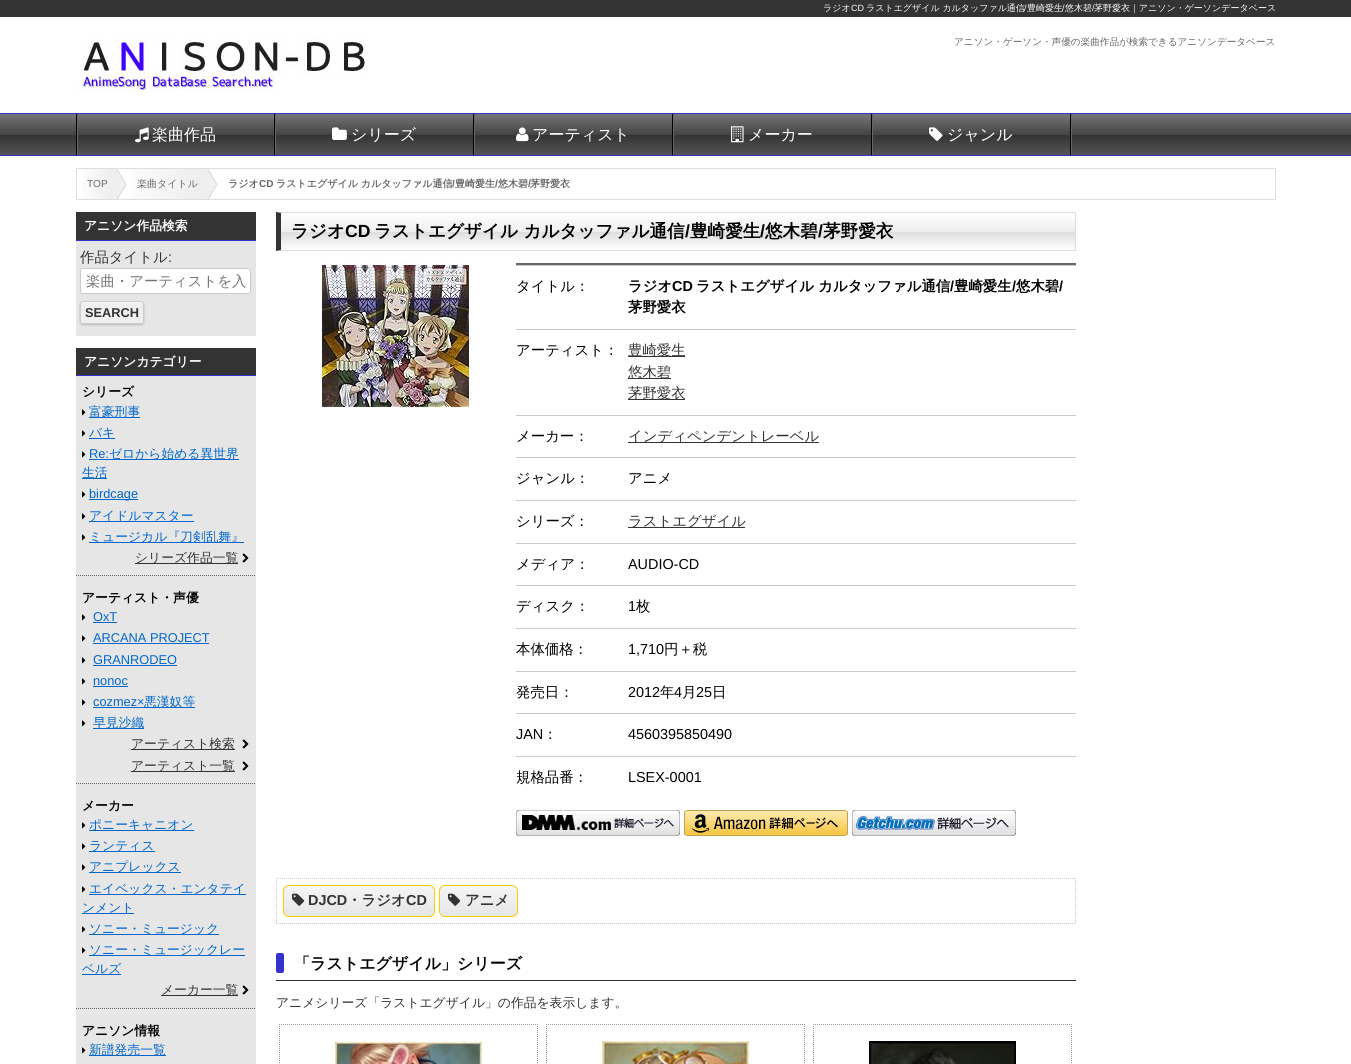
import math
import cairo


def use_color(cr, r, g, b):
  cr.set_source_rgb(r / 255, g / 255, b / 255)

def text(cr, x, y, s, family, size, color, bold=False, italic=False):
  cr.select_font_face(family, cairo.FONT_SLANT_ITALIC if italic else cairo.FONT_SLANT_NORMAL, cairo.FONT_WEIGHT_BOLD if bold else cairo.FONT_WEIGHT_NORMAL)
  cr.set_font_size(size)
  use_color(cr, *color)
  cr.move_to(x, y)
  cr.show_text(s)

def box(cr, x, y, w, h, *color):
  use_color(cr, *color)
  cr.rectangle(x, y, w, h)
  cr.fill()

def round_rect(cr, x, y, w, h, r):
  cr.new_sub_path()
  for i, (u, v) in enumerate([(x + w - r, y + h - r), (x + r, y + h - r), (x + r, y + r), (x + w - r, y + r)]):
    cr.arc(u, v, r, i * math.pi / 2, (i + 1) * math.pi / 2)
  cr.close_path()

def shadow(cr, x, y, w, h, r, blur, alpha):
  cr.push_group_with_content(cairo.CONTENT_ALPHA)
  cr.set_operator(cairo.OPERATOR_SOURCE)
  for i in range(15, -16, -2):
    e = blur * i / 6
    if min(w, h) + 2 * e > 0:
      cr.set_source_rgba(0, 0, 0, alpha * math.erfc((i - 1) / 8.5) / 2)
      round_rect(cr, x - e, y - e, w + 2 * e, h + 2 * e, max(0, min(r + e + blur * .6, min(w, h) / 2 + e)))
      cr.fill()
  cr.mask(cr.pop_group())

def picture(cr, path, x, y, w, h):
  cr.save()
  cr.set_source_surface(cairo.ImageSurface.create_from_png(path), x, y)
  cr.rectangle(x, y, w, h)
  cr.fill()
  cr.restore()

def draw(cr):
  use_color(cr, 255, 255, 255)
  cr.paint()
  box(cr, 0, 0, 1351, 17, 51, 51, 51)
  picture(cr, "img_01.png", 76, 35, 290, 56)
  gradient = cairo.LinearGradient(676, 114, 676, 155)
  gradient.add_color_stop_rgba(0, 0.467, 0.467, 0.467, 1)
  gradient.add_color_stop_rgba(0.5, 0.267, 0.267, 0.267, 1)
  gradient.add_color_stop_rgba(0.51, 0.2, 0.2, 0.2, 1)
  gradient.add_color_stop_rgba(1, 0.333, 0.333, 0.333, 1)
  cr.set_source(gradient)
  cr.rectangle(0, 114, 1351, 41)
  cr.fill()
  box(cr, 0, 113, 1351, 1, 51, 51, 204)
  box(cr, 0, 155, 1351, 1, 51, 51, 204)
  box(cr, 275, 114, 1, 41, 102, 102, 102)
  box(cr, 76, 114, 1, 41, 0, 0, 0)
  box(cr, 274, 114, 1, 41, 0, 0, 0)
  box(cr, 77, 114, 1, 41, 102, 102, 102)
  picture(cr, "img_02.png", 135, 127, 14, 16)
  box(cr, 474, 114, 1, 41, 102, 102, 102)
  box(cr, 473, 114, 1, 41, 0, 0, 0)
  picture(cr, "img_03.png", 332, 127, 15, 13)
  box(cr, 673, 114, 1, 41, 102, 102, 102)
  box(cr, 672, 114, 1, 41, 0, 0, 0)
  picture(cr, "img_04.png", 516, 127, 13, 15)
  box(cr, 872, 114, 1, 41, 102, 102, 102)
  box(cr, 871, 114, 1, 41, 0, 0, 0)
  picture(cr, "img_05.png", 731, 126, 13, 17)
  box(cr, 1071, 114, 1, 41, 102, 102, 102)
  box(cr, 1070, 114, 1, 41, 0, 0, 0)
  picture(cr, "img_06.png", 929, 127, 14, 14)
  cr.rectangle(76.5, 168.5, 1199, 31)
  use_color(cr, 222, 222, 222)
  cr.set_line_width(1)
  cr.stroke()
  gradient = cairo.LinearGradient(77, 169, 117, 169)
  gradient.add_color_stop_rgba(0, 1, 1, 1, 1)
  gradient.add_color_stop_rgba(0.85, 0.937, 0.937, 0.937, 1)
  gradient.add_color_stop_rgba(1, 0.937, 0.937, 0.937, 1)
  cr.set_source(gradient)
  cr.rectangle(82, 169, 35, 30)
  cr.fill()
  gradient = cairo.LinearGradient(117, 169, 208, 169)
  gradient.add_color_stop_rgba(0, 1, 1, 1, 1)
  gradient.add_color_stop_rgba(0.85, 0.937, 0.937, 0.937, 1)
  gradient.add_color_stop_rgba(1, 0.937, 0.937, 0.937, 1)
  cr.set_source(gradient)
  cr.rectangle(129, 169, 79, 30)
  cr.fill()
  box(cr, 76, 241, 180, 95, 230, 230, 230)
  box(cr, 76, 212, 180, 28, 51, 51, 51)
  box(cr, 76, 240, 180, 1, 51, 51, 204)
  use_color(cr, 255, 255, 255)
  round_rect(cr, 80.5, 268.5, 170, 25, 2.5)
  cr.fill_preserve()
  use_color(cr, 204, 204, 204)
  cr.stroke()
  use_color(cr, 0, 0, 0)
  shadow(cr, 80, 302, 64, 23, 3, 1, 0.2)
  use_color(cr, 239, 239, 239)
  round_rect(cr, 80, 301, 64, 23, 3)
  cr.fill()
  use_color(cr, 247, 247, 247)
  cr.new_path()
  cr.move_to(83, 303)
  cr.line_to(141, 303)
  cr.curve_to(142, 303, 143, 304, 143, 305)
  cr.curve_to(143, 299, 135, 302, 131, 302)
  cr.line_to(93, 302)
  cr.curve_to(89, 302, 81, 299, 81, 305)
  cr.curve_to(81, 304, 82, 303, 83, 303)
  cr.close_path()
  cr.fill()
  round_rect(cr, 80.5, 301.5, 63, 22, 2.5)
  use_color(cr, 204, 204, 204)
  cr.stroke()
  box(cr, 76, 376, 180, 688, 230, 230, 230)
  box(cr, 76, 348, 180, 27, 51, 51, 51)
  box(cr, 76, 375, 180, 1, 51, 51, 204)
  cr.new_path()
  cr.move_to(76, 575.5)
  cr.line_to(256, 575.5)
  use_color(cr, 102, 102, 102)
  cr.set_dash([1, 1])
  cr.stroke()
  picture(cr, "img_07.png", 82, 409, 4, 7)
  box(cr, 89, 417, 51, 1, 0, 102, 204)
  picture(cr, "img_07.png", 82, 430, 4, 7)
  box(cr, 89, 438, 26, 1, 0, 102, 204)
  picture(cr, "img_07.png", 82, 451, 4, 7)
  box(cr, 89, 459, 150, 1, 0, 102, 204)
  box(cr, 82, 478, 25, 1, 0, 102, 204)
  picture(cr, "img_07.png", 82, 491, 4, 7)
  box(cr, 89, 499, 49, 1, 0, 102, 204)
  picture(cr, "img_07.png", 82, 513, 4, 7)
  box(cr, 89, 521, 105, 1, 0, 102, 204)
  picture(cr, "img_07.png", 82, 534, 4, 7)
  box(cr, 89, 542, 155, 1, 0, 102, 204)
  box(cr, 135, 563, 103, 1, 51, 51, 51)
  picture(cr, "img_08.png", 242, 553, 7, 10)
  cr.new_path()
  cr.move_to(76, 783.5)
  cr.line_to(256, 783.5)
  use_color(cr, 102, 102, 102)
  cr.stroke()
  picture(cr, "img_07.png", 82, 614, 4, 7)
  box(cr, 93, 622, 24, 1, 0, 102, 204)
  picture(cr, "img_07.png", 82, 635, 4, 7)
  box(cr, 93, 643, 116, 1, 0, 102, 204)
  picture(cr, "img_07.png", 82, 657, 4, 7)
  box(cr, 93, 665, 84, 1, 0, 102, 204)
  picture(cr, "img_07.png", 82, 678, 4, 7)
  box(cr, 93, 686, 35, 1, 0, 102, 204)
  picture(cr, "img_07.png", 82, 699, 4, 7)
  box(cr, 93, 707, 102, 1, 0, 102, 204)
  picture(cr, "img_07.png", 82, 720, 4, 7)
  box(cr, 93, 728, 51, 1, 0, 102, 204)
  box(cr, 131, 749, 104, 1, 51, 51, 51)
  picture(cr, "img_08.png", 242, 739, 7, 10)
  box(cr, 131, 771, 104, 1, 51, 51, 51)
  picture(cr, "img_08.png", 242, 761, 7, 10)
  cr.new_path()
  cr.move_to(76, 1008.5)
  cr.line_to(256, 1008.5)
  use_color(cr, 102, 102, 102)
  cr.stroke()
  picture(cr, "img_07.png", 82, 822, 4, 7)
  box(cr, 89, 830, 105, 1, 0, 102, 204)
  picture(cr, "img_07.png", 82, 843, 4, 7)
  box(cr, 89, 851, 66, 1, 0, 102, 204)
  picture(cr, "img_07.png", 82, 864, 4, 7)
  box(cr, 89, 872, 92, 1, 0, 102, 204)
  picture(cr, "img_07.png", 82, 886, 4, 7)
  box(cr, 89, 894, 157, 1, 0, 102, 204)
  box(cr, 82, 913, 52, 1, 0, 102, 204)
  picture(cr, "img_07.png", 82, 926, 4, 7)
  box(cr, 89, 934, 130, 1, 0, 102, 204)
  picture(cr, "img_07.png", 82, 947, 4, 7)
  box(cr, 89, 955, 156, 1, 0, 102, 204)
  box(cr, 82, 974, 39, 1, 0, 102, 204)
  box(cr, 161, 995, 77, 1, 51, 51, 51)
  picture(cr, "img_08.png", 242, 985, 7, 10)
  picture(cr, "img_07.png", 82, 1047, 4, 7)
  box(cr, 89, 1055, 77, 1, 0, 102, 204)
  gradient = cairo.LinearGradient(281, 213, 281, 250)
  gradient.add_color_stop_rgba(0, 1, 1, 1, 1)
  gradient.add_color_stop_rgba(0.5, 0.933, 0.933, 0.933, 1)
  gradient.add_color_stop_rgba(0.51, 0.867, 0.867, 0.867, 1)
  gradient.add_color_stop_rgba(1, 1, 1, 1, 1)
  cr.set_source(gradient)
  cr.rectangle(281, 216, 794, 33)
  cr.fill()
  use_color(cr, 221, 221, 221)
  cr.new_path()
  cr.move_to(276, 212)
  cr.line_to(1076, 212)
  cr.line_to(1075, 213)
  cr.line_to(281, 213)
  cr.close_path()
  cr.fill()
  box(cr, 1075, 212, 1, 39, 221, 221, 221)
  cr.new_path()
  cr.move_to(1076, 251)
  cr.line_to(276, 251)
  cr.line_to(281, 250)
  cr.line_to(1075, 250)
  cr.close_path()
  cr.fill()
  use_color(cr, 51, 51, 51)
  cr.new_path()
  cr.move_to(276, 251)
  cr.line_to(276, 212)
  cr.line_to(281, 213)
  cr.line_to(281, 250)
  cr.close_path()
  cr.fill()
  picture(cr, "img_09.png", 322, 263, 147, 145)
  box(cr, 516, 263, 560, 2, 102, 102, 102)
  box(cr, 516, 265, 560, 1, 204, 204, 204)
  box(cr, 516, 329, 560, 1, 204, 204, 204)
  box(cr, 628, 356, 57, 1, 51, 51, 51)
  box(cr, 628, 378, 43, 1, 51, 51, 51)
  box(cr, 628, 399, 57, 1, 51, 51, 51)
  box(cr, 516, 415, 560, 1, 204, 204, 204)
  box(cr, 628, 442, 191, 1, 51, 51, 51)
  box(cr, 516, 457, 560, 1, 204, 204, 204)
  box(cr, 516, 500, 560, 1, 204, 204, 204)
  box(cr, 628, 527, 117, 1, 51, 51, 51)
  box(cr, 516, 543, 560, 1, 204, 204, 204)
  box(cr, 516, 585, 560, 1, 204, 204, 204)
  box(cr, 516, 628, 560, 1, 204, 204, 204)
  box(cr, 516, 671, 560, 1, 204, 204, 204)
  box(cr, 516, 713, 560, 1, 204, 204, 204)
  box(cr, 516, 756, 560, 1, 204, 204, 204)
  picture(cr, "img_10.png", 516, 810, 164, 26)
  picture(cr, "img_11.png", 684, 810, 164, 26)
  picture(cr, "img_12.png", 852, 810, 164, 26)
  cr.new_path()
  cr.move_to(276, 878.5)
  cr.line_to(1076, 878.5)
  cr.stroke()
  cr.new_path()
  cr.move_to(1075.5, 878)
  cr.line_to(1075.5, 924)
  cr.stroke()
  cr.new_path()
  cr.move_to(276, 923.5)
  cr.line_to(1076, 923.5)
  cr.stroke()
  cr.new_path()
  cr.move_to(276.5, 878)
  cr.line_to(276.5, 924)
  cr.stroke()
  cr.save()
  round_rect(cr, 283, 885, 152, 32, 6)
  cr.clip()
  gradient = cairo.LinearGradient(284, 886, 284, 916)
  gradient.add_color_stop_rgba(0, 0.961, 0.961, 0.961, 1)
  gradient.add_color_stop_rgba(1, 0.902, 0.902, 0.902, 1)
  cr.set_source(gradient)
  cr.rectangle(283, 886, 152, 30)
  cr.fill()
  cr.restore()
  round_rect(cr, 283.5, 885.5, 151, 31, 5.5)
  use_color(cr, 255, 204, 0)
  cr.set_dash([])
  cr.stroke()
  picture(cr, "img_13.png", 292, 893, 13, 13)
  cr.save()
  round_rect(cr, 439, 885, 79, 32, 6)
  cr.clip()
  gradient = cairo.LinearGradient(440, 886, 440, 916)
  gradient.add_color_stop_rgba(0, 0.961, 0.961, 0.961, 1)
  gradient.add_color_stop_rgba(1, 0.902, 0.902, 0.902, 1)
  cr.set_source(gradient)
  cr.rectangle(439, 886, 79, 30)
  cr.fill()
  cr.restore()
  round_rect(cr, 439.5, 885.5, 78, 31, 5.5)
  cr.stroke()
  picture(cr, "img_13.png", 448, 893, 13, 13)
  box(cr, 276, 980, 800, 1, 51, 51, 51)
  use_color(cr, 51, 51, 204)
  round_rect(cr, 276, 953, 8, 20, 2)
  cr.fill()
  cr.new_path()
  cr.move_to(279, 1024.5)
  cr.line_to(538, 1024.5)
  use_color(cr, 153, 153, 153)
  cr.set_dash([1, 1])
  cr.stroke()
  cr.new_path()
  cr.move_to(537.5, 1024)
  cr.line_to(537.5, 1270)
  cr.stroke()
  cr.new_path()
  cr.move_to(279.5, 1024)
  cr.line_to(279.5, 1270)
  cr.stroke()
  picture(cr, "img_14.png", 335, 1041, 147, 23)
  cr.new_path()
  cr.move_to(546, 1024.5)
  cr.line_to(805, 1024.5)
  cr.stroke()
  cr.new_path()
  cr.move_to(804.5, 1024)
  cr.line_to(804.5, 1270)
  cr.stroke()
  cr.new_path()
  cr.move_to(546.5, 1024)
  cr.line_to(546.5, 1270)
  cr.stroke()
  picture(cr, "img_15.png", 602, 1041, 147, 23)
  cr.new_path()
  cr.move_to(813, 1024.5)
  cr.line_to(1072, 1024.5)
  cr.stroke()
  cr.new_path()
  cr.move_to(1071.5, 1024)
  cr.line_to(1071.5, 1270)
  cr.stroke()
  cr.new_path()
  cr.move_to(813.5, 1024)
  cr.line_to(813.5, 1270)
  cr.stroke()
  picture(cr, "img_16.png", 869, 1041, 147, 23)
  text(cr, 823, 11, "ラジオ", "WenQuanYi Zen Hei Medium", 9, (255, 255, 255))
  text(cr, 851, 11, "CD", "Liberation Sans", 9, (255, 255, 255))
  text(cr, 866, 11, "ラストエグザイル カルタッファル通信", "WenQuanYi Zen Hei Medium", 9, (255, 255, 255))
  text(cr, 1024, 11, "/", "Liberation Sans", 9, (255, 255, 255))
  text(cr, 1027, 11, "豊崎愛生", "WenQuanYi Zen Hei Medium", 9, (255, 255, 255))
  text(cr, 1062, 11, "/", "Liberation Sans", 9, (255, 255, 255))
  text(cr, 1065, 11, "悠木碧", "WenQuanYi Zen Hei Medium", 9, (255, 255, 255))
  text(cr, 1092, 11, "/", "Liberation Sans", 9, (255, 255, 255))
  text(cr, 1094, 11, "茅野愛衣｜アニソン・ゲーソンデータベース", "WenQuanYi Zen Hei Medium", 9, (255, 255, 255))
  text(cr, 954, 45, "アニソン・ゲーソン・声優の楽曲作品が検索できるアニソンデータベース", "WenQuanYi Zen Hei Medium", 9.6, (102, 102, 102))
  text(cr, 152, 140, "楽曲作品", "WenQuanYi Zen Hei Medium", 16, (255, 255, 255))
  text(cr, 351, 140, "シリーズ", "WenQuanYi Zen Hei Medium", 16, (255, 255, 255))
  text(cr, 532, 140, "アーティスト", "WenQuanYi Zen Hei Medium", 16, (255, 255, 255))
  text(cr, 748, 140, "メーカー", "WenQuanYi Zen Hei Medium", 16, (255, 255, 255))
  text(cr, 947, 140, "ジャンル", "WenQuanYi Zen Hei Medium", 16, (255, 255, 255))
  text(cr, 87, 187, "TOP", "Liberation Sans", 10, (102, 102, 102))
  use_color(cr, 239, 239, 239)
  cr.new_path()
  cr.move_to(106.5, 169.5)
  cr.line_to(117.5, 169.5)
  cr.line_to(126.5, 184.5)
  cr.line_to(115.5, 184.5)
  cr.close_path()
  cr.fill()
  use_color(cr, 214, 214, 214)
  cr.new_path()
  cr.move_to(116.5, 169.5)
  cr.line_to(117.5, 169.5)
  cr.line_to(126.5, 184.5)
  cr.line_to(125.5, 184.5)
  cr.close_path()
  cr.fill()
  cr.save()
  cr.rectangle(77, 169, 1198, 30)
  cr.clip()
  use_color(cr, 239, 239, 239)
  cr.new_path()
  cr.move_to(115.5, 184.5)
  cr.line_to(126.5, 184.5)
  cr.line_to(117.5, 199.5)
  cr.line_to(106.5, 199.5)
  cr.close_path()
  cr.fill()
  cr.restore()
  cr.new_path()
  cr.move_to(125.5, 184.5)
  cr.line_to(126.5, 184.5)
  cr.line_to(117.5, 199.5)
  cr.line_to(116.5, 199.5)
  cr.close_path()
  cr.fill()
  text(cr, 137, 187, "楽曲タイトル", "WenQuanYi Zen Hei Medium", 10, (102, 102, 102))
  use_color(cr, 239, 239, 239)
  cr.new_path()
  cr.move_to(197.5, 169.5)
  cr.line_to(208.5, 169.5)
  cr.line_to(217.5, 184.5)
  cr.line_to(206.5, 184.5)
  cr.close_path()
  cr.fill()
  use_color(cr, 214, 214, 214)
  cr.new_path()
  cr.move_to(207.5, 169.5)
  cr.line_to(208.5, 169.5)
  cr.line_to(217.5, 184.5)
  cr.line_to(216.5, 184.5)
  cr.close_path()
  cr.fill()
  cr.save()
  cr.rectangle(77, 169, 1198, 30)
  cr.clip()
  use_color(cr, 239, 239, 239)
  cr.new_path()
  cr.move_to(206.5, 184.5)
  cr.line_to(217.5, 184.5)
  cr.line_to(208.5, 199.5)
  cr.line_to(197.5, 199.5)
  cr.close_path()
  cr.fill()
  cr.restore()
  cr.new_path()
  cr.move_to(216.5, 184.5)
  cr.line_to(217.5, 184.5)
  cr.line_to(208.5, 199.5)
  cr.line_to(207.5, 199.5)
  cr.close_path()
  cr.fill()
  text(cr, 228, 187, "ラジオ", "WenQuanYi Zen Hei", 10, (102, 102, 102), bold=True)
  text(cr, 259, 187, "CD", "Liberation Sans", 10, (102, 102, 102), bold=True)
  text(cr, 276, 187, "ラストエグザイル カルタッファル通信", "WenQuanYi Zen Hei", 10, (102, 102, 102), bold=True)
  text(cr, 452, 187, "/", "Liberation Sans", 10, (102, 102, 102), bold=True)
  text(cr, 455, 187, "豊崎愛生", "WenQuanYi Zen Hei", 10, (102, 102, 102), bold=True)
  text(cr, 495, 187, "/", "Liberation Sans", 10, (102, 102, 102), bold=True)
  text(cr, 498, 187, "悠木碧", "WenQuanYi Zen Hei", 10, (102, 102, 102), bold=True)
  text(cr, 528, 187, "/", "Liberation Sans", 10, (102, 102, 102), bold=True)
  text(cr, 530, 187, "茅野愛衣", "WenQuanYi Zen Hei", 10, (102, 102, 102), bold=True)
  text(cr, 84, 230, "アニソン作品検索", "WenQuanYi Zen Hei", 12.8, (255, 255, 255), bold=True)
  text(cr, 80, 262, "作品タイトル", "WenQuanYi Zen Hei Medium", 14.4, (51, 51, 51))
  text(cr, 168, 262, ":", "Liberation Sans", 14.4, (51, 51, 51))
  text(cr, 86, 286, "楽曲・アーティストを入", "WenQuanYi Zen Hei Medium", 14.4, (117, 117, 117))
  text(cr, 85, 317, "SEARCH", "Liberation Sans", 12.8, (51, 51, 51), bold=True)
  text(cr, 84, 366, "アニソンカテゴリー", "WenQuanYi Zen Hei", 12.8, (255, 255, 255), bold=True)
  text(cr, 82, 396, "シリーズ", "WenQuanYi Zen Hei", 12.8, (0, 0, 0), bold=True)
  text(cr, 89, 416, "富豪刑事", "WenQuanYi Zen Hei Medium", 12.8, (0, 102, 204))
  text(cr, 89, 437, "バキ", "WenQuanYi Zen Hei Medium", 12.8, (0, 102, 204))
  text(cr, 89, 458, "Re:", "Liberation Sans", 12.8, (0, 102, 204))
  text(cr, 109, 458, "ゼロから始める異世界", "WenQuanYi Zen Hei Medium", 12.8, (0, 102, 204))
  text(cr, 82, 477, "生活", "WenQuanYi Zen Hei Medium", 12.8, (0, 102, 204))
  text(cr, 89, 498, "birdcage", "Liberation Sans", 12.8, (0, 102, 204))
  text(cr, 89, 520, "アイドルマスター", "WenQuanYi Zen Hei Medium", 12.8, (0, 102, 204))
  text(cr, 89, 541, "ミュージカル『刀剣乱舞』", "WenQuanYi Zen Hei Medium", 12.8, (0, 102, 204))
  text(cr, 135, 562, "シリーズ作品一覧", "WenQuanYi Zen Hei Medium", 12.8, (51, 51, 51))
  text(cr, 82, 602, "アーティスト・声優", "WenQuanYi Zen Hei", 12.8, (0, 0, 0), bold=True)
  text(cr, 93, 621, "OxT", "Liberation Sans", 12.8, (0, 102, 204))
  text(cr, 93, 642, "ARCANA PROJECT", "Liberation Sans", 12.8, (0, 102, 204))
  text(cr, 93, 664, "GRANRODEO", "Liberation Sans", 12.8, (0, 102, 204))
  text(cr, 93, 685, "nonoc", "Liberation Sans", 12.8, (0, 102, 204))
  text(cr, 93, 706, "cozmez×", "Liberation Sans", 12.8, (0, 102, 204))
  text(cr, 144, 706, "悪漢奴等", "WenQuanYi Zen Hei Medium", 12.8, (0, 102, 204))
  text(cr, 93, 727, "早見沙織", "WenQuanYi Zen Hei Medium", 12.8, (0, 102, 204))
  text(cr, 131, 748, "アーティスト検索", "WenQuanYi Zen Hei Medium", 12.8, (51, 51, 51))
  text(cr, 131, 770, "アーティスト一覧", "WenQuanYi Zen Hei Medium", 12.8, (51, 51, 51))
  text(cr, 82, 810, "メーカー", "WenQuanYi Zen Hei", 12.8, (0, 0, 0), bold=True)
  text(cr, 89, 829, "ポニーキャニオン", "WenQuanYi Zen Hei Medium", 12.8, (0, 102, 204))
  text(cr, 89, 850, "ランティス", "WenQuanYi Zen Hei Medium", 12.8, (0, 102, 204))
  text(cr, 89, 871, "アニプレックス", "WenQuanYi Zen Hei Medium", 12.8, (0, 102, 204))
  text(cr, 89, 893, "エイベックス・エンタテイ", "WenQuanYi Zen Hei Medium", 12.8, (0, 102, 204))
  text(cr, 82, 912, "ンメント", "WenQuanYi Zen Hei Medium", 12.8, (0, 102, 204))
  text(cr, 89, 933, "ソニー・ミュージック", "WenQuanYi Zen Hei Medium", 12.8, (0, 102, 204))
  text(cr, 89, 954, "ソニー・ミュージックレー", "WenQuanYi Zen Hei Medium", 12.8, (0, 102, 204))
  text(cr, 82, 973, "ベルズ", "WenQuanYi Zen Hei Medium", 12.8, (0, 102, 204))
  text(cr, 161, 994, "メーカー一覧", "WenQuanYi Zen Hei Medium", 12.8, (51, 51, 51))
  text(cr, 82, 1035, "アニソン情報", "WenQuanYi Zen Hei", 12.8, (0, 0, 0), bold=True)
  text(cr, 89, 1054, "新譜発売一覧", "WenQuanYi Zen Hei Medium", 12.8, (0, 102, 204))
  text(cr, 291, 237, "ラジオ", "WenQuanYi Zen Hei", 17.6, (0, 0, 0), bold=True)
  text(cr, 345, 237, "CD", "Liberation Sans", 17.6, (0, 0, 0), bold=True)
  text(cr, 374, 237, "ラストエグザイル カルタッファル通信", "WenQuanYi Zen Hei", 17.6, (0, 0, 0), bold=True)
  text(cr, 685, 237, "/", "Liberation Sans", 17.6, (0, 0, 0), bold=True)
  text(cr, 690, 237, "豊崎愛生", "WenQuanYi Zen Hei", 17.6, (0, 0, 0), bold=True)
  text(cr, 760, 237, "/", "Liberation Sans", 17.6, (0, 0, 0), bold=True)
  text(cr, 765, 237, "悠木碧", "WenQuanYi Zen Hei", 17.6, (0, 0, 0), bold=True)
  text(cr, 818, 237, "/", "Liberation Sans", 17.6, (0, 0, 0), bold=True)
  text(cr, 823, 237, "茅野愛衣", "WenQuanYi Zen Hei", 17.6, (0, 0, 0), bold=True)
  text(cr, 516, 291, "タイトル：", "WenQuanYi Zen Hei Medium", 14.4, (0, 0, 0))
  text(cr, 628, 291, "ラジオ", "WenQuanYi Zen Hei", 14.4, (0, 0, 0), bold=True)
  text(cr, 672, 291, "CD", "Liberation Sans", 14.4, (0, 0, 0), bold=True)
  text(cr, 696, 291, "ラストエグザイル カルタッファル通信", "WenQuanYi Zen Hei", 14.4, (0, 0, 0), bold=True)
  text(cr, 950, 291, "/", "Liberation Sans", 14.4, (0, 0, 0), bold=True)
  text(cr, 954, 291, "豊崎愛生", "WenQuanYi Zen Hei", 14.4, (0, 0, 0), bold=True)
  text(cr, 1012, 291, "/", "Liberation Sans", 14.4, (0, 0, 0), bold=True)
  text(cr, 1016, 291, "悠木碧", "WenQuanYi Zen Hei", 14.4, (0, 0, 0), bold=True)
  text(cr, 1059, 291, "/", "Liberation Sans", 14.4, (0, 0, 0), bold=True)
  text(cr, 628, 312, "茅野愛衣", "WenQuanYi Zen Hei", 14.4, (0, 0, 0), bold=True)
  text(cr, 516, 355, "アーティスト：", "WenQuanYi Zen Hei Medium", 14.4, (0, 0, 0))
  text(cr, 628, 355, "豊崎愛生", "WenQuanYi Zen Hei Medium", 14.4, (51, 51, 51))
  text(cr, 628, 377, "悠木碧", "WenQuanYi Zen Hei Medium", 14.4, (51, 51, 51))
  text(cr, 628, 398, "茅野愛衣", "WenQuanYi Zen Hei Medium", 14.4, (51, 51, 51))
  text(cr, 516, 441, "メーカー：", "WenQuanYi Zen Hei Medium", 14.4, (0, 0, 0))
  text(cr, 628, 441, "インディペンデントレーベル", "WenQuanYi Zen Hei Medium", 14.4, (51, 51, 51))
  text(cr, 516, 483, "ジャンル：", "WenQuanYi Zen Hei Medium", 14.4, (0, 0, 0))
  text(cr, 628, 483, "アニメ", "WenQuanYi Zen Hei Medium", 14.4, (0, 0, 0))
  text(cr, 516, 526, "シリーズ：", "WenQuanYi Zen Hei Medium", 14.4, (0, 0, 0))
  text(cr, 628, 526, "ラストエグザイル", "WenQuanYi Zen Hei Medium", 14.4, (51, 51, 51))
  text(cr, 516, 569, "メディア：", "WenQuanYi Zen Hei Medium", 14.4, (0, 0, 0))
  text(cr, 628, 569, "AUDIO-CD", "Liberation Sans", 14.4, (0, 0, 0))
  text(cr, 516, 611, "ディスク：", "WenQuanYi Zen Hei Medium", 14.4, (0, 0, 0))
  text(cr, 628, 611, "1", "Liberation Sans", 14.4, (0, 0, 0))
  text(cr, 636, 611, "枚", "WenQuanYi Zen Hei Medium", 14.4, (0, 0, 0))
  text(cr, 516, 654, "本体価格：", "WenQuanYi Zen Hei Medium", 14.4, (0, 0, 0))
  text(cr, 628, 654, "1,710", "Liberation Sans", 14.4, (0, 0, 0))
  text(cr, 664, 654, "円＋税", "WenQuanYi Zen Hei Medium", 14.4, (0, 0, 0))
  text(cr, 516, 697, "発売日：", "WenQuanYi Zen Hei Medium", 14.4, (0, 0, 0))
  text(cr, 628, 697, "2012", "Liberation Sans", 14.4, (0, 0, 0))
  text(cr, 660, 697, "年", "WenQuanYi Zen Hei Medium", 14.4, (0, 0, 0))
  text(cr, 674, 697, "4", "Liberation Sans", 14.4, (0, 0, 0))
  text(cr, 682, 697, "月", "WenQuanYi Zen Hei Medium", 14.4, (0, 0, 0))
  text(cr, 696, 697, "25", "Liberation Sans", 14.4, (0, 0, 0))
  text(cr, 712, 697, "日", "WenQuanYi Zen Hei Medium", 14.4, (0, 0, 0))
  text(cr, 516, 739, "JAN", "Liberation Sans", 14.4, (0, 0, 0))
  text(cr, 543, 739, "：", "WenQuanYi Zen Hei Medium", 14.4, (0, 0, 0))
  text(cr, 628, 739, "4560395850490", "Liberation Sans", 14.4, (0, 0, 0))
  text(cr, 516, 782, "規格品番：", "WenQuanYi Zen Hei Medium", 14.4, (0, 0, 0))
  text(cr, 628, 782, "LSEX-0001", "Liberation Sans", 14.4, (0, 0, 0))
  text(cr, 308, 905, "DJCD", "Liberation Sans", 14.4, (51, 51, 51), bold=True)
  text(cr, 347, 905, "・ラジオ", "WenQuanYi Zen Hei", 14.4, (51, 51, 51), bold=True)
  text(cr, 406, 905, "CD", "Liberation Sans", 14.4, (51, 51, 51), bold=True)
  text(cr, 465, 905, "アニメ", "WenQuanYi Zen Hei", 14.4, (51, 51, 51), bold=True)
  text(cr, 294, 969, "「ラストエグザイル」シリーズ", "WenQuanYi Zen Hei", 16, (0, 0, 0), bold=True)
  text(cr, 276, 1007, "アニメシリーズ「ラストエグザイル」の作品を表示します。", "WenQuanYi Zen Hei Medium", 12.8, (51, 51, 51))


surface = cairo.ImageSurface(cairo.FORMAT_RGB24, 1351, 1064)
cr = cairo.Context(surface)
options = cairo.FontOptions()
options.set_hint_metrics(cairo.HINT_METRICS_OFF)
options.set_hint_style(cairo.HINT_STYLE_NONE)
cr.set_font_options(options)
cr.set_miter_limit(4)
draw(cr)
surface.write_to_png("out.png")
